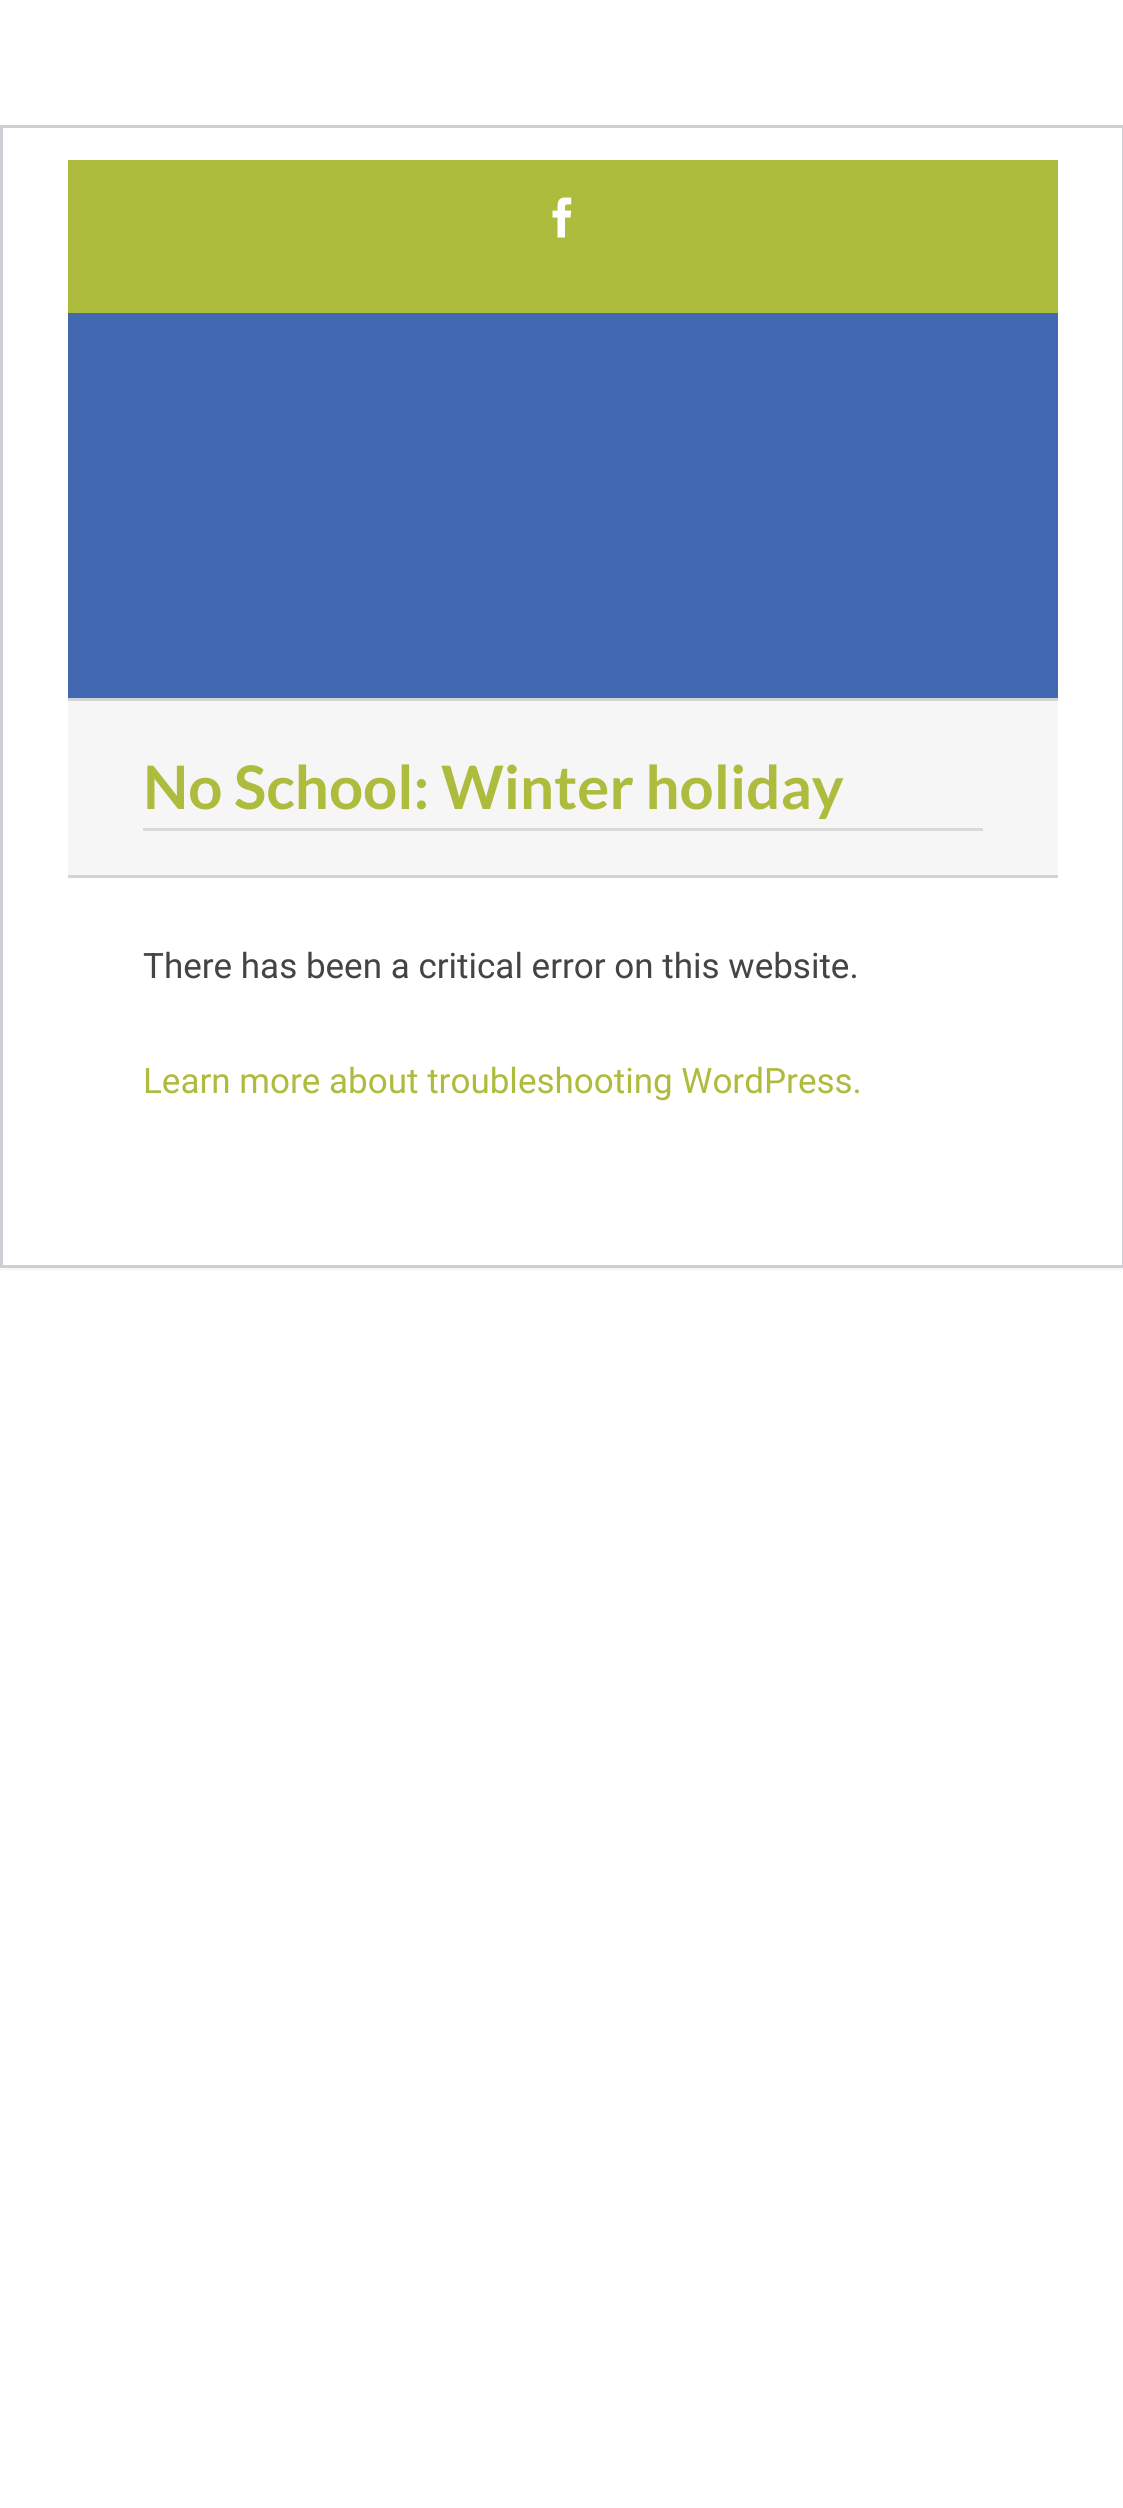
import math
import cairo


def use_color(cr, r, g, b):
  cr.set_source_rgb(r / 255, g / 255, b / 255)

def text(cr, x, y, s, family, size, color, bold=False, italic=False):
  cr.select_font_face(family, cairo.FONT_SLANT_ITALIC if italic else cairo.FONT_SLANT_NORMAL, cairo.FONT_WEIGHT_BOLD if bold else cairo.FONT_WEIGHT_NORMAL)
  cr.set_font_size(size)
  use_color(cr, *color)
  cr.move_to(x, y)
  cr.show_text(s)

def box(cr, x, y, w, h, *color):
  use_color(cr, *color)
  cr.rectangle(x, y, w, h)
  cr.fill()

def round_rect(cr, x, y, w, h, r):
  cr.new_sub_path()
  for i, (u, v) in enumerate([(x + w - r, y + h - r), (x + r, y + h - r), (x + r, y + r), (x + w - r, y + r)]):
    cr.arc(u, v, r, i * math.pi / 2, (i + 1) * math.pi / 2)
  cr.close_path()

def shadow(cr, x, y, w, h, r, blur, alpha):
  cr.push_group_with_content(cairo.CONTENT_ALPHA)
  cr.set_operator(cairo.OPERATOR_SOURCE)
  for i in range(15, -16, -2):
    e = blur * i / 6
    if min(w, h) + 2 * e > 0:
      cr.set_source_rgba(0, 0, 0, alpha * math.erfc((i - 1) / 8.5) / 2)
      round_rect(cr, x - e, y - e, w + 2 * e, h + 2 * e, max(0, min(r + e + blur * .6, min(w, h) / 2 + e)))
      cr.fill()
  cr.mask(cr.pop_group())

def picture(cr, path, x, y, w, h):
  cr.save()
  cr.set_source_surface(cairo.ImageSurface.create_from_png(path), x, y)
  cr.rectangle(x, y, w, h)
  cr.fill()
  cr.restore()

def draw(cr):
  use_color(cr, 255, 255, 255)
  cr.paint()
  use_color(cr, 0, 0, 0)
  shadow(cr, 0, 128, 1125, 1142, 0, 1, 0.04)
  use_color(cr, 255, 255, 255)
  cr.rectangle(1.5, 126.5, 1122, 1140)
  cr.fill_preserve()
  use_color(cr, 204, 208, 212)
  cr.set_line_width(3)
  cr.stroke()
  box(cr, 68, 160, 990, 153, 173, 188, 61)
  box(cr, 68, 313, 990, 385, 65, 104, 176)
  picture(cr, "img_01.png", 552, 197, 20, 41)
  box(cr, 68, 701, 990, 174, 246, 246, 246)
  box(cr, 68, 698, 990, 3, 210, 211, 212)
  box(cr, 68, 875, 990, 3, 210, 211, 212)
  box(cr, 143, 828, 840, 3, 218, 218, 218)
  text(cr, 143, 809, "No School: Winter holiday", "Lato", 60, (173, 188, 61), bold=True)
  text(cr, 143, 978, "There has been a critical error on this website.", "Roboto", 35, (68, 68, 68))
  text(cr, 143, 1093, "Learn more about troubleshooting WordPress.", "Roboto", 35, (173, 188, 61))


surface = cairo.ImageSurface(cairo.FORMAT_RGB24, 1123, 2508)
cr = cairo.Context(surface)
options = cairo.FontOptions()
options.set_hint_metrics(cairo.HINT_METRICS_OFF)
options.set_hint_style(cairo.HINT_STYLE_NONE)
cr.set_font_options(options)
cr.set_miter_limit(4)
draw(cr)
surface.write_to_png("out.png")
